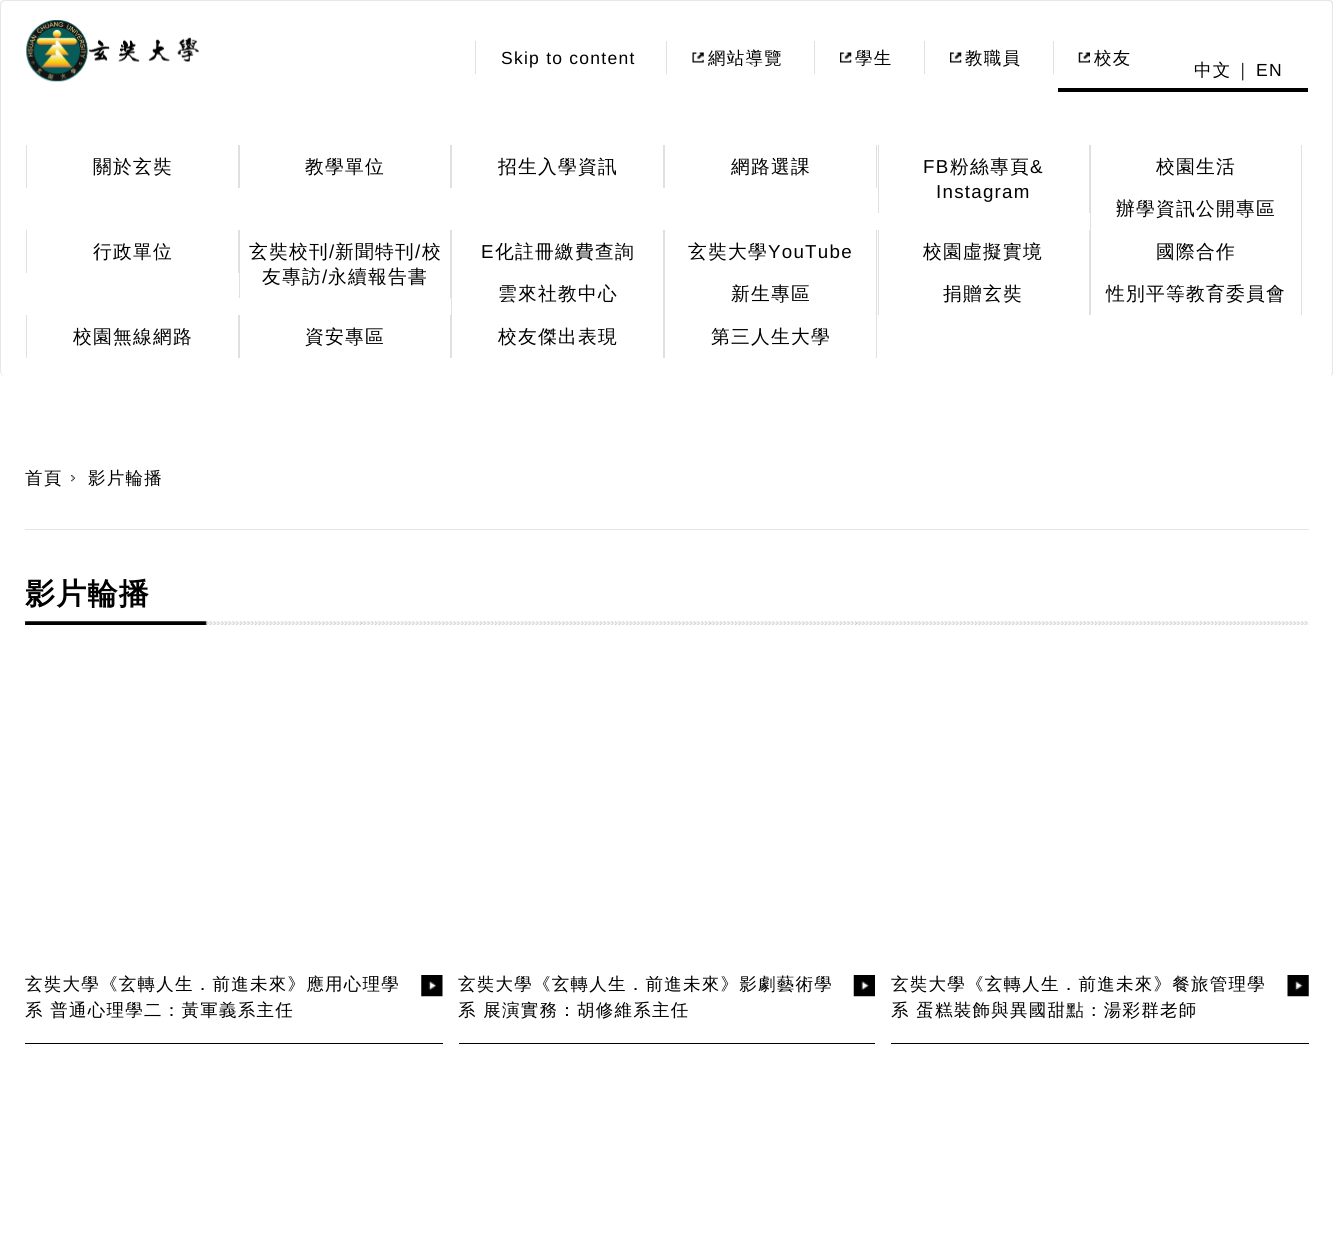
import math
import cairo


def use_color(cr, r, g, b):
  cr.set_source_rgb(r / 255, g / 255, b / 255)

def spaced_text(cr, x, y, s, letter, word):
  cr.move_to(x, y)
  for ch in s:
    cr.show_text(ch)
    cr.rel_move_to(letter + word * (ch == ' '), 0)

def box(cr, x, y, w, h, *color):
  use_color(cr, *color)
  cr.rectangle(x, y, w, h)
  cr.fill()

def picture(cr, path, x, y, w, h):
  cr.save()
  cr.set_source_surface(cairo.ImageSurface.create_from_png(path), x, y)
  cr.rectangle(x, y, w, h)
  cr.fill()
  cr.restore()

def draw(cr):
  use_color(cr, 255, 255, 255)
  cr.paint()
  use_color(cr, 231, 231, 231)
  cr.set_fill_rule(cairo.FILL_RULE_EVEN_ODD)
  cr.new_path()
  cr.move_to(5, 0)
  cr.line_to(1329, 0)
  cr.curve_to(1332, 0, 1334, 2, 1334, 5)
  cr.line_to(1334, 371)
  cr.curve_to(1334, 374, 1332, 376, 1329, 376)
  cr.line_to(5, 376)
  cr.curve_to(2, 376, 0, 374, 0, 371)
  cr.line_to(0, 5)
  cr.curve_to(0, 2, 2, 0, 5, 0)
  cr.close_path()
  cr.move_to(5, 1)
  cr.line_to(1329, 1)
  cr.curve_to(1331, 1, 1332, 3, 1332, 5)
  cr.line_to(1332, 371)
  cr.curve_to(1332, 374, 1331, 376, 1329, 376)
  cr.line_to(5, 376)
  cr.curve_to(3, 376, 1, 374, 1, 371)
  cr.line_to(1, 5)
  cr.curve_to(1, 3, 3, 1, 5, 1)
  cr.close_path()
  cr.fill()
  picture(cr, "img_01.png", 26, 20, 173, 62)
  box(cr, 475, 41, 1, 33, 224, 224, 224)
  picture(cr, "img_02.png", 692, 52, 12, 11)
  box(cr, 666, 41, 1, 33, 224, 224, 224)
  picture(cr, "img_03.png", 840, 52, 12, 11)
  box(cr, 814, 41, 1, 33, 224, 224, 224)
  picture(cr, "img_03.png", 950, 52, 12, 11)
  box(cr, 924, 41, 1, 33, 224, 224, 224)
  picture(cr, "img_04.png", 1078, 52, 12, 11)
  box(cr, 1053, 41, 1, 33, 224, 224, 224)
  box(cr, 1058, 88, 250, 4, 0, 0, 0)
  box(cr, 238, 145, 2, 43, 224, 224, 224)
  box(cr, 26, 145, 1, 43, 224, 224, 224)
  box(cr, 450, 145, 2, 43, 224, 224, 224)
  box(cr, 663, 145, 2, 43, 224, 224, 224)
  box(cr, 876, 145, 1, 43, 224, 224, 224)
  box(cr, 1089, 145, 1, 68, 224, 224, 224)
  box(cr, 878, 145, 1, 68, 224, 224, 224)
  box(cr, 1301, 145, 1, 170, 224, 224, 224)
  box(cr, 1090, 145, 1, 85, 224, 224, 224)
  box(cr, 238, 230, 1, 43, 224, 224, 224)
  box(cr, 26, 230, 1, 43, 224, 224, 224)
  box(cr, 450, 230, 1, 68, 224, 224, 224)
  box(cr, 239, 230, 1, 68, 224, 224, 224)
  box(cr, 663, 230, 2, 43, 224, 224, 224)
  box(cr, 451, 230, 1, 85, 224, 224, 224)
  box(cr, 876, 230, 1, 128, 224, 224, 224)
  box(cr, 1089, 230, 2, 43, 224, 224, 224)
  box(cr, 878, 230, 1, 85, 224, 224, 224)
  box(cr, 663, 273, 2, 42, 224, 224, 224)
  box(cr, 1089, 273, 2, 42, 224, 224, 224)
  box(cr, 238, 315, 2, 43, 224, 224, 224)
  box(cr, 26, 315, 1, 43, 224, 224, 224)
  box(cr, 450, 315, 2, 43, 224, 224, 224)
  box(cr, 663, 315, 2, 43, 224, 224, 224)
  box(cr, 25, 529, 1284, 1, 229, 229, 229)
  picture(cr, "img_05.png", 71, 475, 4, 7)
  picture(cr, "img_06.png", 25, 621, 1284, 4)
  box(cr, 25, 1043, 418, 1, 0, 0, 0)
  picture(cr, "img_07.png", 421, 975, 22, 22)
  box(cr, 459, 1043, 416, 1, 0, 0, 0)
  picture(cr, "img_08.png", 853, 975, 22, 22)
  box(cr, 891, 1043, 418, 1, 0, 0, 0)
  picture(cr, "img_09.png", 1287, 975, 22, 22)
  cr.select_font_face("Liberation Sans")
  cr.set_font_size(17.5)
  spaced_text(cr, 501, 64, "Skip to content", 1.25, 0)
  cr.select_font_face("WenQuanYi Zen Hei Medium")
  spaced_text(cr, 708, 64, "網站導覽", 1.25, 0)
  spaced_text(cr, 855, 64, "學生", 1.25, 0)
  spaced_text(cr, 965, 64, "教職員", 1.25, 0)
  spaced_text(cr, 1094, 64, "校友", 1.25, 0)
  spaced_text(cr, 1194, 76, "中文", 1.25, 0)
  spaced_text(cr, 1234, 76, "｜", 1.25, 0)
  cr.select_font_face("Liberation Sans")
  spaced_text(cr, 1256, 76, "EN", 1.25, 0)
  cr.select_font_face("WenQuanYi Zen Hei Medium")
  cr.set_font_size(18.75)
  spaced_text(cr, 93, 173, "關於玄奘", 1.25, 0)
  spaced_text(cr, 305, 173, "教學單位", 1.25, 0)
  spaced_text(cr, 498, 173, "招生入學資訊", 1.25, 0)
  spaced_text(cr, 731, 173, "網路選課", 1.25, 0)
  cr.select_font_face("Liberation Sans")
  spaced_text(cr, 923, 173, "FB", 1.25, 0)
  cr.select_font_face("WenQuanYi Zen Hei Medium")
  spaced_text(cr, 950, 173, "粉絲專頁", 1.25, 0)
  cr.select_font_face("Liberation Sans")
  spaced_text(cr, 1030, 173, "&", 1.25, 0)
  spaced_text(cr, 936, 198, "Instagram", 1.25, 0)
  cr.select_font_face("WenQuanYi Zen Hei Medium")
  spaced_text(cr, 1156, 173, "校園生活", 1.25, 0)
  spaced_text(cr, 1116, 215, "辦學資訊公開專區", 1.25, 0)
  spaced_text(cr, 93, 258, "行政單位", 1.25, 0)
  spaced_text(cr, 249, 258, "玄奘校刊", 1.25, 0)
  cr.select_font_face("Liberation Sans")
  spaced_text(cr, 329, 258, "/", 1.25, 0)
  cr.select_font_face("WenQuanYi Zen Hei Medium")
  spaced_text(cr, 335, 258, "新聞特刊", 1.25, 0)
  cr.select_font_face("Liberation Sans")
  spaced_text(cr, 415, 258, "/", 1.25, 0)
  cr.select_font_face("WenQuanYi Zen Hei Medium")
  spaced_text(cr, 422, 258, "校", 1.25, 0)
  spaced_text(cr, 262, 283, "友專訪", 1.25, 0)
  cr.select_font_face("Liberation Sans")
  spaced_text(cr, 322, 283, "/", 1.25, 0)
  cr.select_font_face("WenQuanYi Zen Hei Medium")
  spaced_text(cr, 328, 283, "永續報告書", 1.25, 0)
  cr.select_font_face("Liberation Sans")
  spaced_text(cr, 481, 258, "E", 1.25, 0)
  cr.select_font_face("WenQuanYi Zen Hei Medium")
  spaced_text(cr, 495, 258, "化註冊繳費查詢", 1.25, 0)
  spaced_text(cr, 688, 258, "玄奘大學", 1.25, 0)
  cr.select_font_face("Liberation Sans")
  spaced_text(cr, 768, 258, "YouTube", 1.25, 0)
  cr.select_font_face("WenQuanYi Zen Hei Medium")
  spaced_text(cr, 923, 258, "校園虛擬實境", 1.25, 0)
  spaced_text(cr, 1156, 258, "國際合作", 1.25, 0)
  spaced_text(cr, 498, 300, "雲來社教中心", 1.25, 0)
  spaced_text(cr, 731, 300, "新生專區", 1.25, 0)
  spaced_text(cr, 943, 300, "捐贈玄奘", 1.25, 0)
  spaced_text(cr, 1106, 300, "性別平等教育委員會", 1.25, 0)
  spaced_text(cr, 73, 343, "校園無線網路", 1.25, 0)
  spaced_text(cr, 305, 343, "資安專區", 1.25, 0)
  spaced_text(cr, 498, 343, "校友傑出表現", 1.25, 0)
  spaced_text(cr, 711, 343, "第三人生大學", 1.25, 0)
  cr.set_font_size(17.5)
  spaced_text(cr, 25, 484, "首頁", 1.25, 0)
  spaced_text(cr, 88, 484, "影片輪播", 1.25, 0)
  cr.select_font_face("WenQuanYi Zen Hei", cairo.FONT_SLANT_NORMAL, cairo.FONT_WEIGHT_BOLD)
  cr.set_font_size(30)
  spaced_text(cr, 25, 604, "影片輪播", 1.25, 0)
  cr.select_font_face("WenQuanYi Zen Hei Medium")
  cr.set_font_size(17.5)
  spaced_text(cr, 25, 990, "玄奘大學《玄轉人生．前進未來》應用心理學", 1.25, 0)
  spaced_text(cr, 25, 1016, "系 普通心理學二：黃軍義系主任", 1.25, 0)
  spaced_text(cr, 458, 990, "玄奘大學《玄轉人生．前進未來》影劇藝術學", 1.25, 0)
  spaced_text(cr, 458, 1016, "系 展演實務：胡修維系主任", 1.25, 0)
  spaced_text(cr, 891, 990, "玄奘大學《玄轉人生．前進未來》餐旅管理學", 1.25, 0)
  spaced_text(cr, 891, 1016, "系 蛋糕裝飾與異國甜點：湯彩群老師", 1.25, 0)


surface = cairo.ImageSurface(cairo.FORMAT_RGB24, 1333, 1249)
cr = cairo.Context(surface)
options = cairo.FontOptions()
options.set_hint_metrics(cairo.HINT_METRICS_OFF)
options.set_hint_style(cairo.HINT_STYLE_NONE)
cr.set_font_options(options)
cr.set_miter_limit(4)
draw(cr)
surface.write_to_png("out.png")
